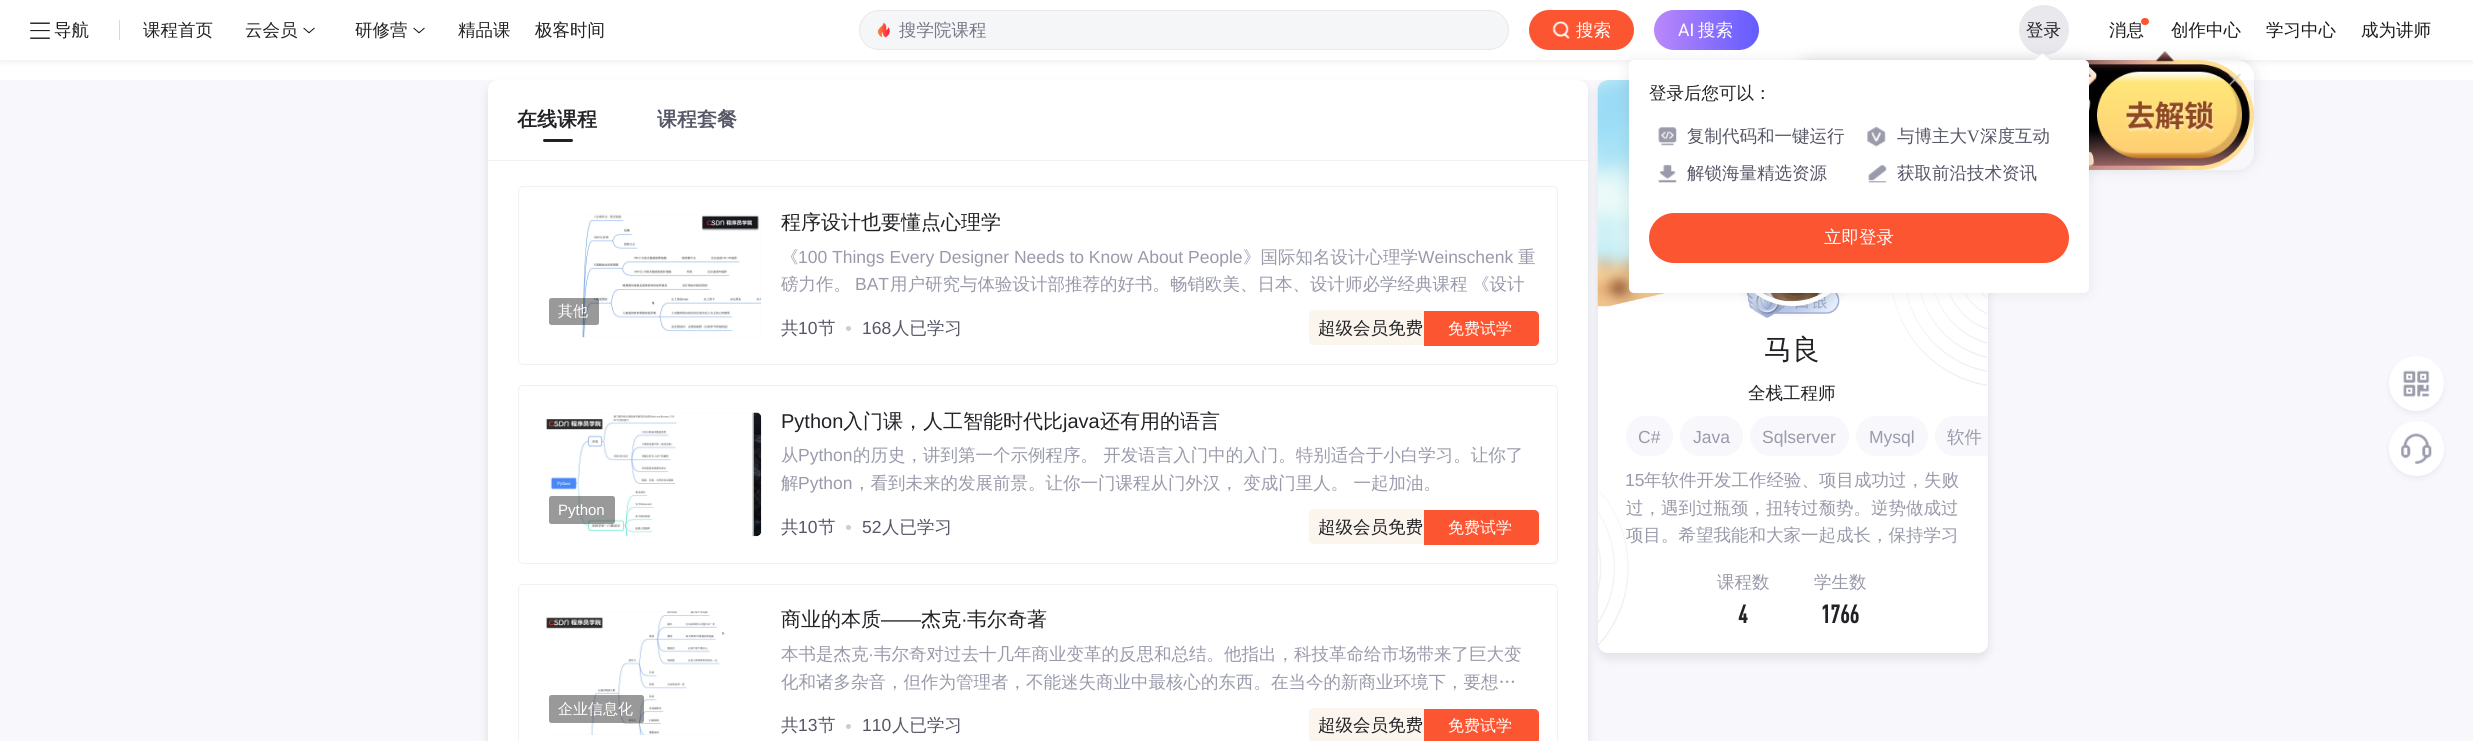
import math
import cairo


def use_color(cr, r, g, b):
  cr.set_source_rgb(r / 255, g / 255, b / 255)

def text(cr, x, y, s, family, size, color, bold=False, italic=False):
  cr.select_font_face(family, cairo.FONT_SLANT_ITALIC if italic else cairo.FONT_SLANT_NORMAL, cairo.FONT_WEIGHT_BOLD if bold else cairo.FONT_WEIGHT_NORMAL)
  cr.set_font_size(size)
  use_color(cr, *color)
  cr.move_to(x, y)
  cr.show_text(s)

def box(cr, x, y, w, h, *color):
  use_color(cr, *color)
  cr.rectangle(x, y, w, h)
  cr.fill()

def round_rect(cr, x, y, w, h, r):
  cr.new_sub_path()
  for i, (u, v) in enumerate([(x + w - r, y + h - r), (x + r, y + h - r), (x + r, y + r), (x + w - r, y + r)]):
    cr.arc(u, v, r, i * math.pi / 2, (i + 1) * math.pi / 2)
  cr.close_path()

def shadow(cr, x, y, w, h, r, blur, alpha):
  cr.push_group_with_content(cairo.CONTENT_ALPHA)
  cr.set_operator(cairo.OPERATOR_SOURCE)
  for i in range(15, -16, -2):
    e = blur * i / 6
    if min(w, h) + 2 * e > 0:
      cr.set_source_rgba(0, 0, 0, alpha * math.erfc((i - 1) / 8.5) / 2)
      round_rect(cr, x - e, y - e, w + 2 * e, h + 2 * e, max(0, min(r + e + blur * .6, min(w, h) / 2 + e)))
      cr.fill()
  cr.mask(cr.pop_group())

def picture(cr, path, x, y, w, h):
  cr.save()
  cr.set_source_surface(cairo.ImageSurface.create_from_png(path), x, y)
  cr.rectangle(x, y, w, h)
  cr.fill()
  cr.restore()

def draw(cr):
  use_color(cr, 255, 255, 255)
  cr.paint()
  use_color(cr, 0, 0, 0)
  shadow(cr, 0, 3, 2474, 60, 0, 2.5, 0.05)
  box(cr, 0, 1, 2473, 59, 255, 255, 255)
  picture(cr, "img_01.png", 30, 22, 20, 17)
  use_color(cr, 216, 216, 216)
  round_rect(cr, 119, 20, 1, 20, 0.5)
  cr.fill()
  picture(cr, "img_02.png", 303, 27, 12, 7)
  picture(cr, "img_02.png", 413, 27, 12, 7)
  use_color(cr, 245, 246, 247)
  round_rect(cr, 859.5, 10.5, 649, 39, 19.5)
  cr.fill_preserve()
  use_color(cr, 232, 232, 237)
  cr.set_line_width(1)
  cr.stroke()
  picture(cr, "img_03.png", 877, 22, 13, 16)
  use_color(cr, 252, 85, 49)
  round_rect(cr, 1529, 10, 105, 40, 20)
  cr.fill()
  picture(cr, "img_04.png", 1552, 21, 18, 18)
  gradient = cairo.LinearGradient(1654, 30, 1759, 30)
  gradient.add_color_stop_rgba(0, 0.729, 0.533, 0.98, 1)
  gradient.add_color_stop_rgba(1, 0.388, 0.357, 1, 1)
  cr.set_source(gradient)
  round_rect(cr, 1654, 10, 105, 40, 20)
  cr.fill()
  use_color(cr, 232, 232, 237)
  cr.arc(2044, 30, 25, 0, 2 * math.pi)
  cr.fill()
  box(cr, 0, 80, 2473, 661, 247, 247, 252)
  use_color(cr, 7, 17, 27)
  shadow(cr, 488, 85, 1100, 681, 10, 5, 0.1)
  use_color(cr, 255, 255, 255)
  round_rect(cr, 488, 80, 1100, 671, 10)
  cr.fill()
  box(cr, 488, 160, 1100, 1, 240, 240, 245)
  use_color(cr, 7, 17, 27)
  shadow(cr, 1598, 85, 390, 573, 10, 5, 0.1)
  use_color(cr, 255, 255, 255)
  round_rect(cr, 1598, 80, 390, 573, 10)
  cr.fill()
  picture(cr, "img_18.png", 1746, 293, 94, 25)
  use_color(cr, 7, 17, 27)
  shadow(cr, 1730, 186, 125, 125, 62.5, 5, 0.1)
  cr.arc(1792.5, 243.5, 60, 0, 2 * math.pi)
  use_color(cr, 255, 255, 255)
  cr.set_line_width(5)
  cr.stroke()
  cr.save()
  cr.set_fill_rule(cairo.FILL_RULE_EVEN_ODD)
  cr.new_path()
  cr.move_to(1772, 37)
  cr.line_to(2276, 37)
  cr.line_to(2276, 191)
  cr.line_to(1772, 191)
  cr.close_path()
  cr.move_to(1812, 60)
  cr.line_to(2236, 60)
  cr.curve_to(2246, 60, 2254, 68, 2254, 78)
  cr.line_to(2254, 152)
  cr.curve_to(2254, 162, 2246, 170, 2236, 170)
  cr.line_to(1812, 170)
  cr.curve_to(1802, 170, 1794, 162, 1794, 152)
  cr.line_to(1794, 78)
  cr.curve_to(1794, 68, 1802, 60, 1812, 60)
  cr.close_path()
  cr.clip()
  use_color(cr, 103, 103, 103)
  shadow(cr, 1794, 59, 460, 110, 18, 7, 0.19)
  cr.restore()
  picture(cr, "img_11.png", 2084, 60, 170, 110)
  picture(cr, "img_16.png", 1597, 80, 68, 227)
  picture(cr, "img_17.png", 1762, 293, 60, 9)
  picture(cr, "img_19.png", 1892, 293, 96, 93)
  use_color(cr, 0, 0, 0)
  shadow(cr, 1626, 58, 465, 237, 8, 6, 0.06)
  use_color(cr, 255, 255, 255)
  round_rect(cr, 1629, 60, 460, 233, 5)
  cr.fill()
  picture(cr, "img_05.png", 2034, 53, 17, 8)
  picture(cr, "img_06.png", 1658, 127, 19, 19)
  picture(cr, "img_07.png", 1867, 126, 19, 21)
  picture(cr, "img_08.png", 1658, 164, 19, 19)
  picture(cr, "img_09.png", 1868, 165, 19, 18)
  use_color(cr, 252, 85, 49)
  round_rect(cr, 1649, 213, 420, 50, 25)
  cr.fill()
  picture(cr, "img_10.png", 2155, 51, 19, 11)
  picture(cr, "img_12.png", 2228, 73, 13, 13)
  use_color(cr, 34, 34, 38)
  round_rect(cr, 543, 139, 30, 3, 1.5)
  cr.fill()
  round_rect(cr, 518.5, 186.5, 1039, 178, 4.5)
  use_color(cr, 240, 240, 245)
  cr.set_line_width(1)
  cr.stroke()
  picture(cr, "img_13.png", 582, 214, 180, 124)
  cr.set_source_rgba(0, 0, 0, 0.4)
  round_rect(cr, 549, 298, 50, 27, 2.5)
  cr.fill()
  use_color(cr, 204, 204, 216)
  cr.arc(848.5, 328.5, 2.5, 0, 2 * math.pi)
  cr.fill()
  use_color(cr, 251, 245, 238)
  cr.new_path()
  cr.move_to(1314, 310)
  cr.line_to(1424, 310)
  cr.line_to(1424, 345)
  cr.line_to(1314, 345)
  cr.curve_to(1311, 345, 1309, 343, 1309, 340)
  cr.line_to(1309, 315)
  cr.curve_to(1309, 312, 1311, 310, 1314, 310)
  cr.close_path()
  cr.fill()
  use_color(cr, 252, 85, 49)
  cr.new_path()
  cr.move_to(1424, 311)
  cr.line_to(1534, 311)
  cr.curve_to(1537, 311, 1539, 313, 1539, 316)
  cr.line_to(1539, 341)
  cr.curve_to(1539, 344, 1537, 346, 1534, 346)
  cr.line_to(1424, 346)
  cr.close_path()
  cr.fill()
  round_rect(cr, 518.5, 385.5, 1039, 178, 4.5)
  use_color(cr, 240, 240, 245)
  cr.stroke()
  picture(cr, "img_14.png", 546, 412, 216, 125)
  cr.set_source_rgba(0, 0, 0, 0.4)
  round_rect(cr, 549, 496, 66, 28, 2.5)
  cr.fill()
  use_color(cr, 204, 204, 216)
  cr.arc(848.5, 527.5, 2.5, 0, 2 * math.pi)
  cr.fill()
  use_color(cr, 251, 245, 238)
  cr.new_path()
  cr.move_to(1314, 509)
  cr.line_to(1424, 509)
  cr.line_to(1424, 544)
  cr.line_to(1314, 544)
  cr.curve_to(1311, 544, 1309, 542, 1309, 539)
  cr.line_to(1309, 514)
  cr.curve_to(1309, 511, 1311, 509, 1314, 509)
  cr.close_path()
  cr.fill()
  use_color(cr, 252, 85, 49)
  cr.new_path()
  cr.move_to(1424, 510)
  cr.line_to(1534, 510)
  cr.curve_to(1537, 510, 1539, 512, 1539, 515)
  cr.line_to(1539, 540)
  cr.curve_to(1539, 543, 1537, 545, 1534, 545)
  cr.line_to(1424, 545)
  cr.close_path()
  cr.fill()
  round_rect(cr, 518.5, 584.5, 1039, 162, 4.5)
  use_color(cr, 240, 240, 245)
  cr.stroke()
  picture(cr, "img_15.png", 546, 611, 179, 124)
  cr.set_source_rgba(0, 0, 0, 0.4)
  round_rect(cr, 549, 695, 95, 28, 2.5)
  cr.fill()
  use_color(cr, 204, 204, 216)
  cr.arc(848.5, 726.5, 2.5, 0, 2 * math.pi)
  cr.fill()
  use_color(cr, 251, 245, 238)
  cr.new_path()
  cr.move_to(1314, 708)
  cr.line_to(1424, 708)
  cr.line_to(1424, 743)
  cr.line_to(1314, 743)
  cr.curve_to(1311, 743, 1309, 741, 1309, 738)
  cr.line_to(1309, 713)
  cr.curve_to(1309, 710, 1311, 708, 1314, 708)
  cr.close_path()
  cr.fill()
  use_color(cr, 252, 85, 49)
  cr.new_path()
  cr.move_to(1424, 709)
  cr.line_to(1534, 709)
  cr.curve_to(1537, 709, 1539, 711, 1539, 714)
  cr.line_to(1539, 739)
  cr.curve_to(1539, 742, 1537, 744, 1534, 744)
  cr.line_to(1424, 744)
  cr.close_path()
  cr.fill()
  use_color(cr, 247, 247, 252)
  round_rect(cr, 1626, 416, 47, 40, 20)
  cr.fill()
  round_rect(cr, 1680, 416, 63, 40, 20)
  cr.fill()
  round_rect(cr, 1750, 416, 99, 40, 20)
  cr.fill()
  round_rect(cr, 1856, 416, 72, 40, 20)
  cr.fill()
  cr.new_path()
  cr.move_to(1955, 416)
  cr.line_to(1988, 416)
  cr.line_to(1988, 456)
  cr.line_to(1955, 456)
  cr.curve_to(1944, 456, 1935, 447, 1935, 436)
  cr.curve_to(1935, 425, 1944, 416, 1955, 416)
  cr.close_path()
  cr.fill()
  use_color(cr, 0, 0, 0)
  shadow(cr, 2389, 359, 55, 55, 27.5, 2.5, 0.05)
  use_color(cr, 255, 255, 255)
  cr.arc(2416.5, 383.5, 27.5, 0, 2 * math.pi)
  cr.fill()
  picture(cr, "img_21.png", 2403, 370, 27, 27)
  use_color(cr, 0, 0, 0)
  shadow(cr, 2389, 424, 55, 55, 27.5, 2.5, 0.05)
  use_color(cr, 255, 255, 255)
  cr.arc(2416.5, 448.5, 27.5, 0, 2 * math.pi)
  cr.fill()
  picture(cr, "img_22.png", 2401, 433, 31, 31)
  text(cr, 54, 36, "导航", "WenQuanYi Zen Hei Medium", 17.5, (26, 26, 26))
  text(cr, 143, 36, "课程首页", "WenQuanYi Zen Hei Medium", 17.5, (34, 34, 38))
  text(cr, 245, 36, "云会员", "WenQuanYi Zen Hei Medium", 17.5, (34, 34, 38))
  text(cr, 355, 36, "研修营", "WenQuanYi Zen Hei Medium", 17.5, (34, 34, 38))
  text(cr, 458, 36, "精品课", "WenQuanYi Zen Hei Medium", 17.5, (34, 34, 38))
  text(cr, 535, 36, "极客时间", "WenQuanYi Zen Hei Medium", 17.5, (34, 34, 38))
  text(cr, 899, 36, "搜学院课程", "WenQuanYi Zen Hei Medium", 17.5, (119, 120, 136))
  text(cr, 1576, 36, "搜索", "WenQuanYi Zen Hei Medium", 17.5, (255, 255, 255))
  text(cr, 1678, 36, "AI", "Roboto", 17.5, (255, 255, 255))
  text(cr, 1698, 36, "搜索", "WenQuanYi Zen Hei Medium", 17.5, (255, 255, 255))
  text(cr, 2026, 36, "登录", "WenQuanYi Zen Hei Medium", 17.5, (34, 34, 38))
  text(cr, 1649, 99, "登录后您可以：", "WenQuanYi Zen Hei Medium", 17.5, (34, 34, 38))
  text(cr, 1687, 142, "复制代码和一键运行", "WenQuanYi Zen Hei Medium", 17.5, (85, 86, 102))
  text(cr, 1897, 142, "与博主大", "WenQuanYi Zen Hei Medium", 17.5, (85, 86, 102))
  text(cr, 1967, 142, "V", "Liberation Serif", 17.5, (85, 86, 102))
  text(cr, 1980, 142, "深度互动", "WenQuanYi Zen Hei Medium", 17.5, (85, 86, 102))
  text(cr, 1687, 179, "解锁海量精选资源", "WenQuanYi Zen Hei Medium", 17.5, (85, 86, 102))
  text(cr, 1897, 179, "获取前沿技术资讯", "WenQuanYi Zen Hei Medium", 17.5, (85, 86, 102))
  text(cr, 1824, 243, "立即登录", "WenQuanYi Zen Hei Medium", 17.5, (255, 255, 255))
  text(cr, 2109, 36, "消息", "WenQuanYi Zen Hei Medium", 17.5, (26, 26, 26))
  use_color(cr, 252, 85, 49)
  round_rect(cr, 2141, 18, 8, 7, 3.5)
  cr.fill()
  text(cr, 2171, 36, "创作中心", "WenQuanYi Zen Hei Medium", 17.5, (26, 26, 26))
  text(cr, 2266, 36, "学习中心", "WenQuanYi Zen Hei Medium", 17.5, (26, 26, 26))
  text(cr, 2361, 36, "成为讲师", "WenQuanYi Zen Hei Medium", 17.5, (26, 26, 26))
  text(cr, 517, 126, "在线课程", "WenQuanYi Zen Hei", 20, (34, 34, 38), bold=True)
  text(cr, 657, 126, "课程套餐", "WenQuanYi Zen Hei", 20, (85, 86, 102), bold=True)
  text(cr, 558, 316, "其他", "WenQuanYi Zen Hei Medium", 15, (255, 255, 255))
  text(cr, 781, 229, "程序设计也要懂点心理学", "WenQuanYi Zen Hei Medium", 20, (34, 34, 38))
  text(cr, 781, 263, "《", "WenQuanYi Zen Hei Medium", 17.5, (153, 154, 170))
  text(cr, 798, 263, "100 Things Every Designer Needs to Know About People", "Liberation Sans", 17.5, (153, 154, 170))
  text(cr, 1243, 263, "》国际知名设计心理学", "WenQuanYi Zen Hei Medium", 17.5, (153, 154, 170))
  text(cr, 1418, 263, "Weinschenk", "Liberation Sans", 17.5, (153, 154, 170))
  text(cr, 1518, 263, "重", "WenQuanYi Zen Hei Medium", 17.5, (153, 154, 170))
  text(cr, 781, 290, "磅力作。", "WenQuanYi Zen Hei Medium", 17.5, (153, 154, 170))
  text(cr, 855, 290, "BAT", "Liberation Sans", 17.5, (153, 154, 170))
  text(cr, 890, 290, "用户研究与体验设计部推荐的好书。畅销欧美、日本、设计师必学经典课程", "WenQuanYi Zen Hei Medium", 17.5, (153, 154, 170))
  text(cr, 1472, 290, "《设计", "WenQuanYi Zen Hei Medium", 17.5, (153, 154, 170))
  text(cr, 781, 334, "共", "WenQuanYi Zen Hei Medium", 17.5, (85, 86, 102))
  text(cr, 798, 334, "10", "Liberation Sans", 17.5, (85, 86, 102))
  text(cr, 818, 334, "节", "WenQuanYi Zen Hei Medium", 17.5, (85, 86, 102))
  text(cr, 862, 334, "168", "Liberation Sans", 17.5, (85, 86, 102))
  text(cr, 892, 334, "人已学习", "WenQuanYi Zen Hei Medium", 17.5, (85, 86, 102))
  text(cr, 1318, 334, "超级会员免费", "WenQuanYi Zen Hei Medium", 17.5, (34, 34, 38))
  text(cr, 1448, 334, "免费试学", "WenQuanYi Zen Hei Medium", 16, (255, 255, 255))
  text(cr, 558, 515, "Python", "Liberation Sans", 15, (255, 255, 255))
  text(cr, 781, 428, "Python", "Liberation Sans", 20, (34, 34, 38))
  text(cr, 843, 428, "入门课，人工智能时代比", "WenQuanYi Zen Hei Medium", 20, (34, 34, 38))
  text(cr, 1063, 428, "java", "Liberation Sans", 20, (34, 34, 38))
  text(cr, 1100, 428, "还有用的语言", "WenQuanYi Zen Hei Medium", 20, (34, 34, 38))
  text(cr, 781, 461, "从", "WenQuanYi Zen Hei Medium", 17.5, (153, 154, 170))
  text(cr, 798, 461, "Python", "Liberation Sans", 17.5, (153, 154, 170))
  text(cr, 853, 461, "的历史，讲到第一个示例程序。 开发语言入门中的入门。特别适合于小白学习。让你了", "WenQuanYi Zen Hei Medium", 17.5, (153, 154, 170))
  text(cr, 781, 489, "解", "WenQuanYi Zen Hei Medium", 17.5, (153, 154, 170))
  text(cr, 798, 489, "Python", "Liberation Sans", 17.5, (153, 154, 170))
  text(cr, 853, 489, "，看到未来的发展前景。让你一门课程从门外汉， 变成门里人。 一起加油。", "WenQuanYi Zen Hei Medium", 17.5, (153, 154, 170))
  text(cr, 781, 533, "共", "WenQuanYi Zen Hei Medium", 17.5, (85, 86, 102))
  text(cr, 798, 533, "10", "Liberation Sans", 17.5, (85, 86, 102))
  text(cr, 818, 533, "节", "WenQuanYi Zen Hei Medium", 17.5, (85, 86, 102))
  text(cr, 862, 533, "52", "Liberation Sans", 17.5, (85, 86, 102))
  text(cr, 882, 533, "人已学习", "WenQuanYi Zen Hei Medium", 17.5, (85, 86, 102))
  text(cr, 1318, 533, "超级会员免费", "WenQuanYi Zen Hei Medium", 17.5, (34, 34, 38))
  text(cr, 1448, 533, "免费试学", "WenQuanYi Zen Hei Medium", 16, (255, 255, 255))
  text(cr, 558, 714, "企业信息化", "WenQuanYi Zen Hei Medium", 15, (255, 255, 255))
  text(cr, 781, 626, "商业的本质", "WenQuanYi Zen Hei Medium", 20, (34, 34, 38))
  text(cr, 881, 626, "——", "Liberation Sans", 20, (34, 34, 38))
  text(cr, 921, 626, "杰克", "WenQuanYi Zen Hei Medium", 20, (34, 34, 38))
  text(cr, 961, 626, "·", "Liberation Sans", 20, (34, 34, 38))
  text(cr, 967, 626, "韦尔奇著", "WenQuanYi Zen Hei Medium", 20, (34, 34, 38))
  text(cr, 781, 660, "本书是杰克", "WenQuanYi Zen Hei Medium", 17.5, (153, 154, 170))
  text(cr, 868, 660, "·", "Liberation Sans", 17.5, (153, 154, 170))
  text(cr, 874, 660, "韦尔奇对过去十几年商业变革的反思和总结。他指出，科技革命给市场带来了巨大变", "WenQuanYi Zen Hei Medium", 17.5, (153, 154, 170))
  text(cr, 781, 688, "化和诸多杂音，但作为管理者，不能迷失商业中最核心的东西。在当今的新商业环境下，要想…", "WenQuanYi Zen Hei Medium", 17.5, (153, 154, 170))
  text(cr, 781, 731, "共", "WenQuanYi Zen Hei Medium", 17.5, (85, 86, 102))
  text(cr, 798, 731, "13", "Liberation Sans", 17.5, (85, 86, 102))
  text(cr, 818, 731, "节", "WenQuanYi Zen Hei Medium", 17.5, (85, 86, 102))
  text(cr, 862, 731, "110", "Liberation Sans", 17.5, (85, 86, 102))
  text(cr, 892, 731, "人已学习", "WenQuanYi Zen Hei Medium", 17.5, (85, 86, 102))
  text(cr, 1318, 731, "超级会员免费", "WenQuanYi Zen Hei Medium", 17.5, (34, 34, 38))
  text(cr, 1448, 731, "免费试学", "WenQuanYi Zen Hei Medium", 16, (255, 255, 255))
  text(cr, 1764, 359, "马良", "WenQuanYi Zen Hei Medium", 28, (34, 34, 38))
  text(cr, 1748, 399, "全栈工程师", "WenQuanYi Zen Hei Medium", 17.5, (34, 34, 38))
  text(cr, 1638, 443, "C#", "Liberation Sans", 17.5, (153, 154, 170))
  text(cr, 1693, 443, "Java", "Liberation Sans", 17.5, (153, 154, 170))
  text(cr, 1762, 443, "Sqlserver", "Liberation Sans", 17.5, (153, 154, 170))
  text(cr, 1869, 443, "Mysql", "Liberation Sans", 17.5, (153, 154, 170))
  text(cr, 1947, 443, "软件", "WenQuanYi Zen Hei Medium", 17.5, (153, 154, 170))
  text(cr, 1625, 486, "15", "Liberation Sans", 17.5, (153, 154, 170))
  text(cr, 1644, 486, "年软件开发工作经验、项目成功过，失败", "WenQuanYi Zen Hei Medium", 17.5, (153, 154, 170))
  text(cr, 1626, 514, "过，遇到过瓶颈，扭转过颓势。逆势做成过", "WenQuanYi Zen Hei Medium", 17.5, (153, 154, 170))
  text(cr, 1626, 541, "项目。希望我能和大家一起成长，保持学习", "WenQuanYi Zen Hei Medium", 17.5, (153, 154, 170))
  picture(cr, "img_20.png", 1598, 489, 31, 157)
  text(cr, 1717, 588, "课程数", "WenQuanYi Zen Hei Medium", 17.5, (153, 154, 170))
  text(cr, 1738, 623, "4", "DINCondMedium", 25, (34, 34, 38), bold=True)
  text(cr, 1814, 588, "学生数", "WenQuanYi Zen Hei Medium", 17.5, (153, 154, 170))
  text(cr, 1821, 623, "1766", "DINCondMedium", 25, (34, 34, 38), bold=True)


surface = cairo.ImageSurface(cairo.FORMAT_RGB24, 2473, 741)
cr = cairo.Context(surface)
options = cairo.FontOptions()
options.set_hint_metrics(cairo.HINT_METRICS_OFF)
options.set_hint_style(cairo.HINT_STYLE_NONE)
cr.set_font_options(options)
cr.set_miter_limit(4)
draw(cr)
surface.write_to_png("out.png")
